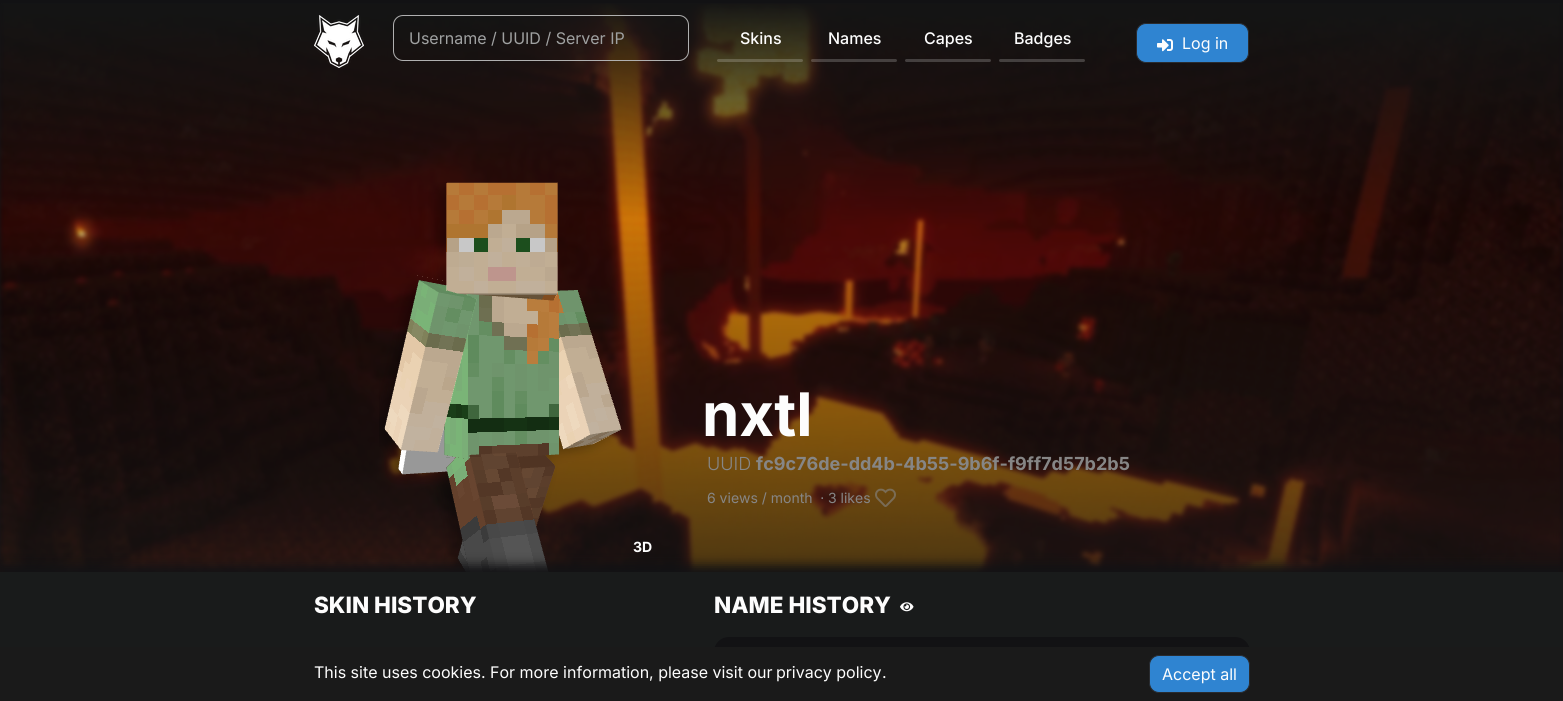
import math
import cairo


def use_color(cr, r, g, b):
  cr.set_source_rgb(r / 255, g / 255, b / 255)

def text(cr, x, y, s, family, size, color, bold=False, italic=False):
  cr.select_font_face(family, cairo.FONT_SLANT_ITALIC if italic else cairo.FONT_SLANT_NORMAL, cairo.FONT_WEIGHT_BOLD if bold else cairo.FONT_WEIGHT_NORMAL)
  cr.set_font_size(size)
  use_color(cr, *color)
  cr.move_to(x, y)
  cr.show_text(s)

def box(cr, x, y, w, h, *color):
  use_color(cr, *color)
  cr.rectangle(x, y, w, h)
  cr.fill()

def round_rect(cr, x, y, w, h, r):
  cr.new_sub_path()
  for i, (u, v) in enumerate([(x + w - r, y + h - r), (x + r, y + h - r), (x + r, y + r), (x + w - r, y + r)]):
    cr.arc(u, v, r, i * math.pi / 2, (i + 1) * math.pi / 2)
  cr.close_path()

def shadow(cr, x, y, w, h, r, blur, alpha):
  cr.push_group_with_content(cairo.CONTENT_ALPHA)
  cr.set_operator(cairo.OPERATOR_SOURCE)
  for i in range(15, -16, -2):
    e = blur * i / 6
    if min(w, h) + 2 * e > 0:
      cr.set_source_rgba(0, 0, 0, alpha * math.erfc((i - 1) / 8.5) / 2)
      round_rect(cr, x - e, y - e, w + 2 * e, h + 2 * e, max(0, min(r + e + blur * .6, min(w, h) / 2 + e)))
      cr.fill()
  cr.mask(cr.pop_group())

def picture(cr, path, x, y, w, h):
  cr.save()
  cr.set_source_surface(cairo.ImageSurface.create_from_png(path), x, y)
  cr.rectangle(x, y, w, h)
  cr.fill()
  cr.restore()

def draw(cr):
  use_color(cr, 18, 18, 20)
  cr.paint()
  picture(cr, "img_03.png", 0, 3, 1563, 569)
  picture(cr, "img_01.png", 314, 15, 50, 53)
  round_rect(cr, 393.5, 15.5, 295, 45, 9.5)
  use_color(cr, 176, 176, 176)
  cr.set_line_width(1)
  cr.stroke()
  cr.set_source_rgba(0.992, 0.992, 0.992, 0.2)
  round_rect(cr, 717, 59, 86, 3, 1.5)
  cr.fill()
  round_rect(cr, 811, 59, 86, 3, 1.5)
  cr.fill()
  round_rect(cr, 905, 59, 86, 3, 1.5)
  cr.fill()
  round_rect(cr, 999, 59, 86, 3, 1.5)
  cr.fill()
  use_color(cr, 47, 132, 209)
  round_rect(cr, 1136.5, 23.5, 112, 39, 9.5)
  cr.fill_preserve()
  use_color(cr, 41, 43, 47)
  cr.stroke()
  picture(cr, "img_02.png", 1157, 39, 16, 13)
  picture(cr, "img_04.png", 379, 182, 243, 390)
  picture(cr, "img_05.png", 875, 488, 21, 19)
  use_color(cr, 18, 18, 20)
  shadow(cr, 0, 565, 1563, 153, 0, 5.5, 1)
  box(cr, 0, 572, 1563, 75, 25, 27, 27)
  picture(cr, "img_06.png", 900, 602, 14, 10)
  use_color(cr, 18, 18, 20)
  cr.new_path()
  cr.move_to(729, 637)
  cr.line_to(760, 637)
  cr.line_to(760, 686)
  cr.line_to(729, 686)
  cr.curve_to(720.5, 686, 714, 679.5, 714, 671)
  cr.line_to(714, 652)
  cr.curve_to(714, 643.5, 720.5, 637, 729, 637)
  cr.close_path()
  cr.fill()
  box(cr, 760, 637, 438, 10, 18, 18, 20)
  cr.new_path()
  cr.move_to(1198, 637)
  cr.line_to(1235, 637)
  cr.curve_to(1243.5, 637, 1250, 643.5, 1250, 652)
  cr.line_to(1250, 671)
  cr.curve_to(1250, 679.5, 1243.5, 686, 1235, 686)
  cr.line_to(1198, 686)
  cr.close_path()
  cr.fill()
  box(cr, 0, 647, 1563, 54, 26, 26, 26)
  use_color(cr, 47, 132, 209)
  round_rect(cr, 1149.5, 655.5, 100, 37, 9.5)
  cr.fill_preserve()
  use_color(cr, 41, 43, 47)
  cr.stroke()
  text(cr, 409, 44, "Username / UUID / Server IP", "Inter", 16, (159, 161, 161))
  text(cr, 740, 44, "Skins", "Inter Medium", 16, (253, 253, 253))
  text(cr, 828, 44, "Names", "Inter Medium", 16, (253, 253, 253))
  text(cr, 924, 44, "Capes", "Inter Medium", 16, (253, 253, 253))
  text(cr, 1014, 44, "Badges", "Inter Medium", 16, (253, 253, 253))
  text(cr, 1182, 49, "Log in", "Inter", 16, (253, 253, 253))
  text(cr, 702, 436, "nxtl", "Inter", 60, (253, 253, 253), bold=True)
  text(cr, 707, 470, "UUID", "Inter Light", 18, (134, 134, 134))
  text(cr, 756, 470, "fc9c76de-dd4b-4b55-9b6f-f9ff7d57b2b5", "Inter", 18, (134, 134, 134), bold=True)
  text(cr, 707, 503, "6 views / month", "Inter", 14, (134, 134, 134))
  text(cr, 820, 503, "⋅", "DejaVu Sans", 14, (134, 134, 134))
  text(cr, 828, 503, "3 likes", "Inter", 14, (134, 134, 134))
  text(cr, 633, 552, "3D", "Inter", 14, (253, 253, 253), bold=True)
  text(cr, 314, 613, "SKIN HISTORY", "Inter ExtraBold", 22.5, (253, 253, 253))
  text(cr, 714, 613, "NAME HISTORY", "Inter ExtraBold", 22.5, (253, 253, 253))
  text(cr, 314, 678, "This site uses cookies. For more information, please visit our", "Inter", 16, (253, 253, 253))
  text(cr, 776, 678, "privacy policy", "Inter", 16, (253, 253, 253))
  text(cr, 882, 678, ".", "Inter", 16, (253, 253, 253))
  text(cr, 1162, 680, "Accept all", "Inter", 16, (253, 253, 253))


surface = cairo.ImageSurface(cairo.FORMAT_RGB24, 1563, 701)
cr = cairo.Context(surface)
options = cairo.FontOptions()
options.set_hint_metrics(cairo.HINT_METRICS_OFF)
options.set_hint_style(cairo.HINT_STYLE_NONE)
cr.set_font_options(options)
cr.set_miter_limit(4)
draw(cr)
surface.write_to_png("out.png")
